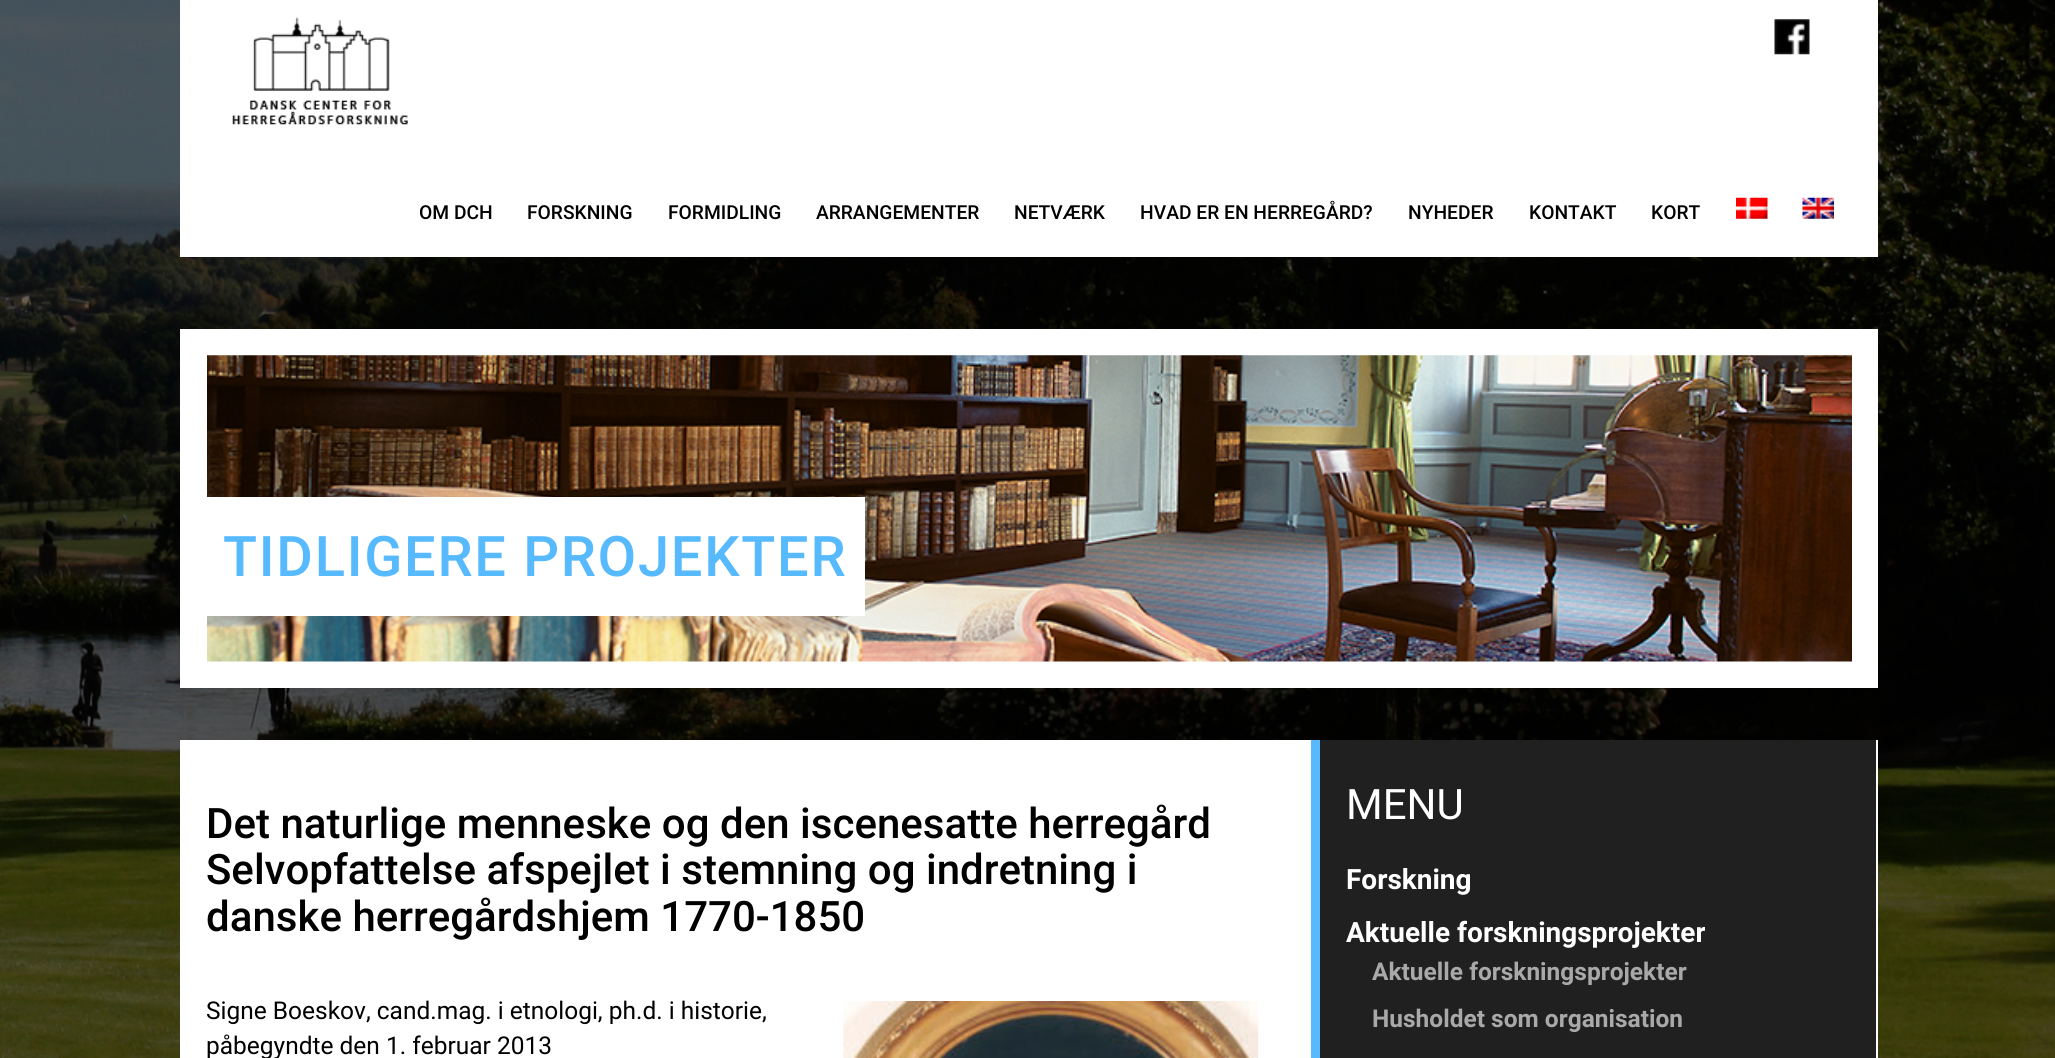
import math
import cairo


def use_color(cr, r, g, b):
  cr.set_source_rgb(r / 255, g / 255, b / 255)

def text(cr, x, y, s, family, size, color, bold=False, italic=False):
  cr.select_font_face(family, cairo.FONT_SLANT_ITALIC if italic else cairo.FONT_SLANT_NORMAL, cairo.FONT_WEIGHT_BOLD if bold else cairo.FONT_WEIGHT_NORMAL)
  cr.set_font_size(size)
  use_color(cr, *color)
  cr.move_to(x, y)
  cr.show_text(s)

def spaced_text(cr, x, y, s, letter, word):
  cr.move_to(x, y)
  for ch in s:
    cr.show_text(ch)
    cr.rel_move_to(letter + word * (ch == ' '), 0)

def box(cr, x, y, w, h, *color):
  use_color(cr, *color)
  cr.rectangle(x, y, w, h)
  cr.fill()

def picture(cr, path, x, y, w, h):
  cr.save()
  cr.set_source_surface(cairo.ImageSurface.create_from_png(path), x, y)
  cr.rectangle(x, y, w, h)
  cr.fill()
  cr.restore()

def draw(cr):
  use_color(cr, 255, 255, 255)
  cr.paint()
  picture(cr, "img_01.png", 0, 0, 2055, 1058)
  box(cr, 180, 0, 1698, 257, 255, 255, 255)
  picture(cr, "img_02.png", 232, 17, 176, 108)
  picture(cr, "img_03.png", 1774, 19, 36, 36)
  picture(cr, "img_04.png", 1736, 197, 32, 22)
  picture(cr, "img_05.png", 1802, 197, 32, 22)
  box(cr, 180, 329, 1698, 359, 255, 255, 255)
  picture(cr, "img_06.png", 207, 355, 1645, 307)
  box(cr, 207, 497, 658, 119, 255, 255, 255)
  box(cr, 180, 740, 1698, 318, 255, 255, 255)
  picture(cr, "img_07.png", 843, 1001, 416, 57)
  box(cr, 1311, 740, 9, 318, 87, 186, 255)
  box(cr, 1320, 740, 556, 318, 32, 32, 32)
  text(cr, 419, 219, "OM DCH", "Roboto Medium", 19.25, (0, 0, 0))
  text(cr, 527, 219, "FORSKNING", "Roboto Medium", 19.25, (0, 0, 0))
  text(cr, 668, 219, "FORMIDLING", "Roboto Medium", 19.25, (0, 0, 0))
  text(cr, 816, 219, "ARRANGEMENTER", "Roboto Medium", 19.25, (0, 0, 0))
  text(cr, 1014, 219, "NETVÆRK", "Roboto Medium", 19.25, (0, 0, 0))
  text(cr, 1140, 219, "HVAD ER EN HERREGÅRD?", "Roboto Medium", 19.25, (0, 0, 0))
  text(cr, 1408, 219, "NYHEDER", "Roboto Medium", 19.25, (0, 0, 0))
  text(cr, 1529, 219, "KONTAKT", "Roboto Medium", 19.25, (0, 0, 0))
  text(cr, 1651, 219, "KORT", "Roboto Medium", 19.25, (0, 0, 0))
  cr.set_font_size(56)
  use_color(cr, 87, 186, 255)
  spaced_text(cr, 223, 576, "TIDLIGERE PROJEKTER", 1.75, 0)
  text(cr, 206, 838, "Det naturlige menneske og den iscenesatte herregård", "Roboto Medium", 42, (0, 0, 0))
  text(cr, 206, 884, "Selvopfattelse afspejlet i stemning og indretning i", "Roboto Medium", 42, (0, 0, 0))
  text(cr, 206, 931, "danske herregårdshjem 1770-1850", "Roboto Medium", 42, (0, 0, 0))
  text(cr, 206, 1019, "Signe Boeskov, cand.mag. i etnologi, ph.d. i historie,", "Roboto", 24.5, (0, 0, 0))
  text(cr, 206, 1054, "påbegyndte den 1. februar 2013", "Roboto", 24.5, (0, 0, 0))
  text(cr, 1346, 819, "MENU", "Roboto", 42, (255, 255, 255))
  text(cr, 1346, 889, "Forskning", "Roboto", 28, (255, 255, 255), bold=True)
  text(cr, 1346, 942, "Aktuelle forskningsprojekter", "Roboto", 28, (255, 255, 255), bold=True)
  text(cr, 1372, 980, "Aktuelle forskningsprojekter", "Roboto", 24.5, (169, 169, 169), bold=True)
  text(cr, 1372, 1027, "Husholdet som organisation", "Roboto", 24.5, (169, 169, 169), bold=True)


surface = cairo.ImageSurface(cairo.FORMAT_RGB24, 2055, 1058)
cr = cairo.Context(surface)
options = cairo.FontOptions()
options.set_hint_metrics(cairo.HINT_METRICS_OFF)
options.set_hint_style(cairo.HINT_STYLE_NONE)
cr.set_font_options(options)
cr.set_miter_limit(4)
draw(cr)
surface.write_to_png("out.png")
